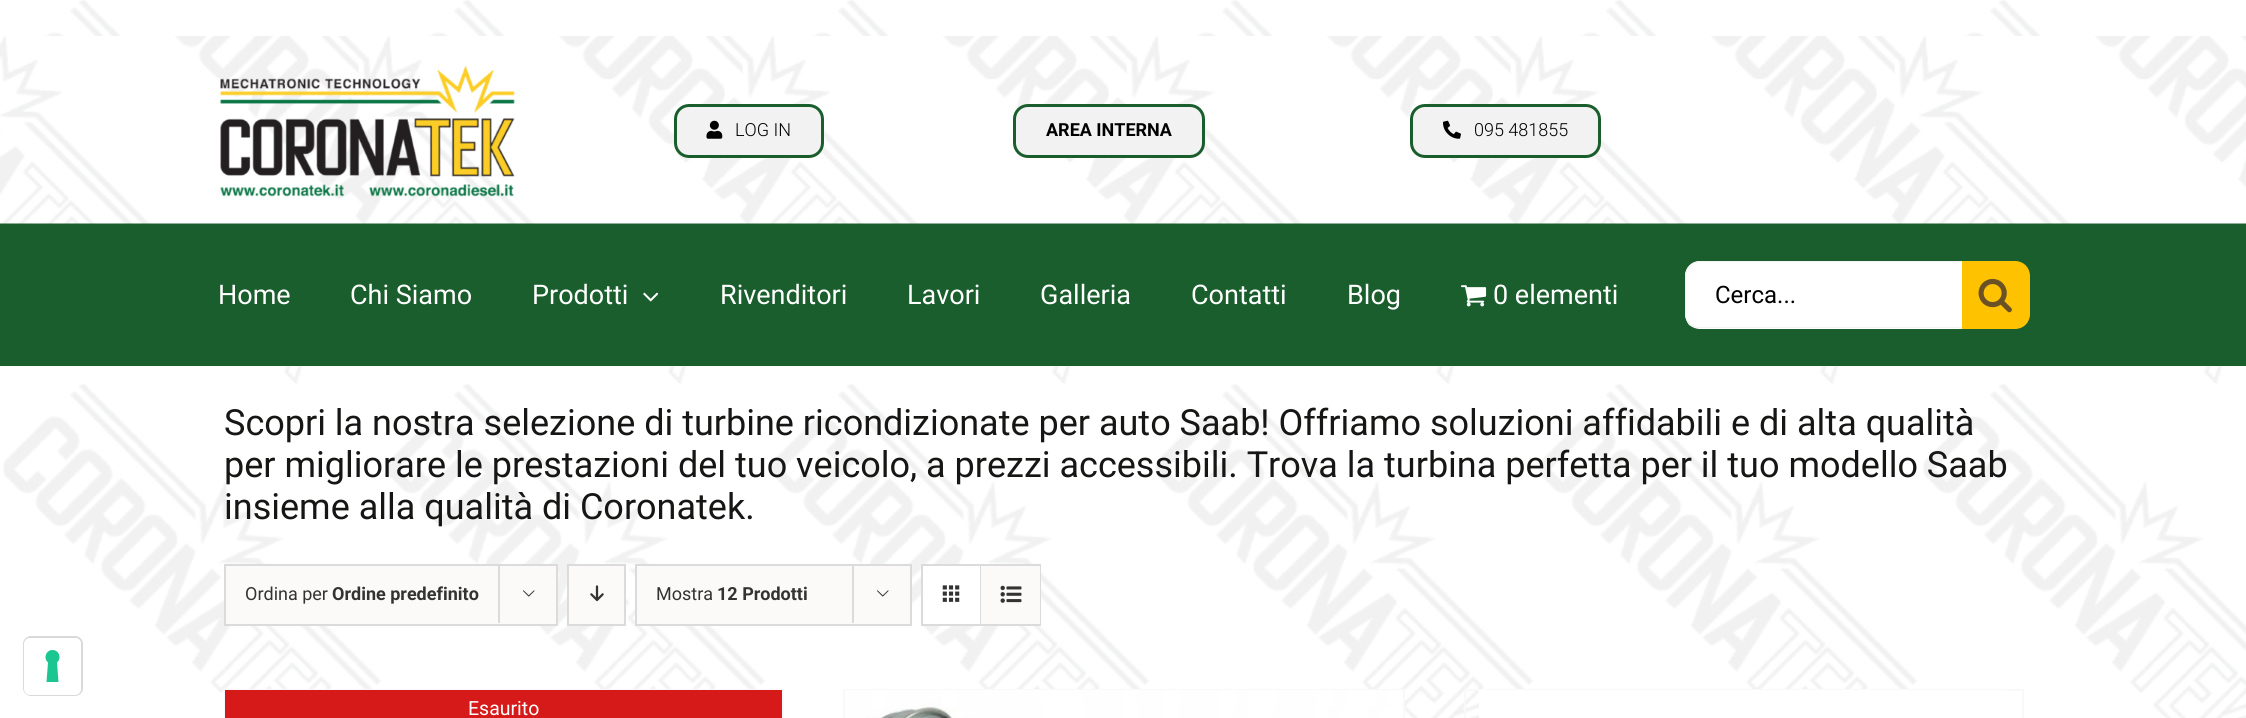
import math
import cairo


def use_color(cr, r, g, b):
  cr.set_source_rgb(r / 255, g / 255, b / 255)

def text(cr, x, y, s, family, size, color, bold=False, italic=False):
  cr.select_font_face(family, cairo.FONT_SLANT_ITALIC if italic else cairo.FONT_SLANT_NORMAL, cairo.FONT_WEIGHT_BOLD if bold else cairo.FONT_WEIGHT_NORMAL)
  cr.set_font_size(size)
  use_color(cr, *color)
  cr.move_to(x, y)
  cr.show_text(s)

def box(cr, x, y, w, h, *color):
  use_color(cr, *color)
  cr.rectangle(x, y, w, h)
  cr.fill()

def round_rect(cr, x, y, w, h, r):
  cr.new_sub_path()
  for i, (u, v) in enumerate([(x + w - r, y + h - r), (x + r, y + h - r), (x + r, y + r), (x + w - r, y + r)]):
    cr.arc(u, v, r, i * math.pi / 2, (i + 1) * math.pi / 2)
  cr.close_path()

def picture(cr, path, x, y, w, h):
  cr.save()
  cr.set_source_surface(cairo.ImageSurface.create_from_png(path), x, y)
  cr.rectangle(x, y, w, h)
  cr.fill()
  cr.restore()

def draw(cr):
  use_color(cr, 255, 255, 255)
  cr.paint()
  picture(cr, "img_01.png", 3, 0, 2243, 718)
  round_rect(cr, 24, 637, 58, 58, 7)
  use_color(cr, 217, 217, 217)
  cr.stroke()
  use_color(cr, 255, 255, 255)
  round_rect(cr, 24, 638, 57, 57, 6)
  cr.fill()
  use_color(cr, 28, 198, 145)
  cr.set_fill_rule(cairo.FILL_RULE_EVEN_ODD)
  cr.new_path()
  cr.move_to(52.5, 650)
  cr.curve_to(59, 650, 62, 658, 57, 662.5)
  cr.line_to(58.5, 682)
  cr.line_to(46.5, 682)
  cr.line_to(48, 662.5)
  cr.curve_to(43, 658, 46, 650, 52.5, 650)
  cr.close_path()
  cr.fill()
  box(cr, 0, 223, 2246, 143, 26, 94, 45)
  picture(cr, "img_02.png", 0, 36, 2246, 188)
  picture(cr, "img_03.png", 220, 65, 295, 132)
  use_color(cr, 242, 242, 242)
  round_rect(cr, 675.5, 105.5, 147, 51, 13.5)
  cr.fill_preserve()
  use_color(cr, 26, 94, 45)
  cr.set_line_width(3)
  cr.stroke()
  picture(cr, "img_04.png", 706, 120, 17, 19)
  use_color(cr, 242, 242, 242)
  round_rect(cr, 1014.5, 105.5, 189, 51, 13.5)
  cr.fill_preserve()
  use_color(cr, 26, 94, 45)
  cr.stroke()
  use_color(cr, 242, 242, 242)
  round_rect(cr, 1411.5, 105.5, 188, 51, 13.5)
  cr.fill_preserve()
  use_color(cr, 26, 94, 45)
  cr.stroke()
  picture(cr, "img_05.png", 1443, 120, 18, 19)
  picture(cr, "img_06.png", 643, 292, 16, 10)
  picture(cr, "img_07.png", 1461, 285, 26, 22)
  use_color(cr, 255, 255, 255)
  cr.new_path()
  cr.move_to(1700, 261)
  cr.line_to(1962, 261)
  cr.line_to(1962, 329)
  cr.line_to(1700, 329)
  cr.curve_to(1691.5, 329, 1685, 322.5, 1685, 314)
  cr.line_to(1685, 276)
  cr.curve_to(1685, 267.5, 1691.5, 261, 1700, 261)
  cr.close_path()
  cr.fill()
  use_color(cr, 242, 243, 245)
  cr.set_fill_rule(cairo.FILL_RULE_WINDING)
  cr.new_path()
  cr.move_to(1700, 261)
  cr.curve_to(1692, 261, 1685, 268, 1685, 276)
  cr.line_to(1685, 314)
  cr.curve_to(1685, 318, 1687, 322, 1689, 325)
  cr.curve_to(1692, 327, 1696, 328, 1700, 328)
  cr.line_to(1962, 328)
  cr.line_to(1962, 327)
  cr.line_to(1700, 327)
  cr.curve_to(1692, 327, 1686, 321, 1686, 314)
  cr.line_to(1686, 276)
  cr.curve_to(1686, 269, 1692, 262, 1700, 262)
  cr.line_to(1962, 262)
  cr.line_to(1962, 261)
  cr.close_path()
  cr.fill()
  use_color(cr, 255, 194, 0)
  cr.new_path()
  cr.move_to(1962, 261)
  cr.line_to(2015, 261)
  cr.curve_to(2023.5, 261, 2030, 267.5, 2030, 276)
  cr.line_to(2030, 314)
  cr.curve_to(2030, 322.5, 2023.5, 329, 2015, 329)
  cr.line_to(1962, 329)
  cr.close_path()
  cr.fill()
  picture(cr, "img_08.png", 1978, 278, 34, 35)
  use_color(cr, 251, 250, 249)
  cr.rectangle(225, 565, 332, 60)
  cr.fill_preserve()
  use_color(cr, 219, 219, 219)
  cr.set_line_width(2)
  cr.stroke()
  box(cr, 498, 564, 2, 59, 219, 219, 219)
  picture(cr, "img_09.png", 523, 590, 12, 7)
  use_color(cr, 251, 250, 249)
  cr.rectangle(568, 565, 57, 60)
  cr.fill_preserve()
  use_color(cr, 219, 219, 219)
  cr.stroke()
  picture(cr, "img_10.png", 590, 585, 14, 17)
  use_color(cr, 251, 250, 249)
  cr.rectangle(636, 565, 275, 60)
  cr.fill_preserve()
  use_color(cr, 219, 219, 219)
  cr.stroke()
  box(cr, 852, 564, 2, 59, 219, 219, 219)
  picture(cr, "img_09.png", 877, 590, 12, 7)
  cr.rectangle(922, 565, 118, 60)
  cr.stroke()
  box(cr, 923, 566, 57, 58, 255, 255, 255)
  box(cr, 980, 566, 1, 58, 219, 219, 219)
  picture(cr, "img_11.png", 942, 585, 18, 17)
  box(cr, 981, 566, 59, 58, 251, 250, 249)
  picture(cr, "img_12.png", 1000, 585, 22, 18)
  box(cr, 224, 689, 559, 2, 249, 249, 251)
  box(cr, 782, 689, 2, 29, 249, 249, 251)
  box(cr, 224, 689, 2, 29, 249, 249, 251)
  box(cr, 230, 690, 548, 28, 254, 254, 254)
  cr.set_source_rgba(0.824, 0, 0, 0.9)
  cr.rectangle(225, 690, 557, 28)
  cr.fill()
  box(cr, 843, 689, 561, 2, 249, 249, 251)
  box(cr, 1403, 689, 2, 29, 249, 249, 251)
  box(cr, 843, 689, 2, 29, 249, 249, 251)
  picture(cr, "img_13.png", 845, 690, 558, 28)
  box(cr, 1464, 689, 560, 2, 249, 249, 251)
  box(cr, 2022, 689, 2, 29, 249, 249, 251)
  box(cr, 1464, 689, 2, 29, 249, 249, 251)
  box(cr, 1479, 690, 528, 28, 255, 255, 255)
  text(cr, 735, 136, "LOG IN", "Roboto Light", 18, (0, 0, 0))
  text(cr, 1046, 136, "AREA INTERNA", "Roboto", 18, (0, 0, 0), bold=True)
  text(cr, 1474, 136, "095 481855", "Roboto Light", 18, (0, 0, 0))
  text(cr, 218, 304, "Home", "Roboto", 27, (255, 255, 255))
  text(cr, 350, 304, "Chi Siamo", "Roboto", 27, (255, 255, 255))
  text(cr, 532, 304, "Prodotti", "Roboto", 27, (255, 255, 255))
  text(cr, 720, 304, "Rivenditori", "Roboto", 27, (255, 255, 255))
  text(cr, 907, 304, "Lavori", "Roboto", 27, (255, 255, 255))
  text(cr, 1040, 304, "Galleria", "Roboto", 27, (255, 255, 255))
  text(cr, 1191, 304, "Contatti", "Roboto", 27, (255, 255, 255))
  text(cr, 1347, 304, "Blog", "Roboto", 27, (255, 255, 255))
  text(cr, 1493, 304, "0 elementi", "Roboto", 27, (255, 255, 255))
  text(cr, 1715, 303, "Cerca...", "Roboto", 24, (0, 0, 0))
  text(cr, 224, 435, "Scopri la nostra selezione di turbine ricondizionate per auto Saab! Offriamo soluzioni affidabili e di alta qualità", "Roboto", 36, (22, 22, 21))
  text(cr, 224, 477, "per migliorare le prestazioni del tuo veicolo, a prezzi accessibili. Trova la turbina perfetta per il tuo modello Saab", "Roboto", 36, (22, 22, 21))
  text(cr, 224, 519, "insieme alla qualità di Coronatek.", "Roboto", 36, (22, 22, 21))
  text(cr, 245, 600, "Ordina per", "Roboto", 18, (51, 51, 51))
  text(cr, 332, 600, "Ordine predefinito", "Roboto", 18, (51, 51, 51), bold=True)
  text(cr, 656, 600, "Mostra", "Roboto", 18, (51, 51, 51))
  text(cr, 717, 600, "12 Prodotti", "Roboto", 18, (51, 51, 51), bold=True)
  text(cr, 468, 715, "Esaurito", "Roboto", 19.5, (255, 255, 255))


surface = cairo.ImageSurface(cairo.FORMAT_RGB24, 2246, 718)
cr = cairo.Context(surface)
options = cairo.FontOptions()
options.set_hint_metrics(cairo.HINT_METRICS_OFF)
options.set_hint_style(cairo.HINT_STYLE_NONE)
cr.set_font_options(options)
cr.set_miter_limit(4)
draw(cr)
surface.write_to_png("out.png")
